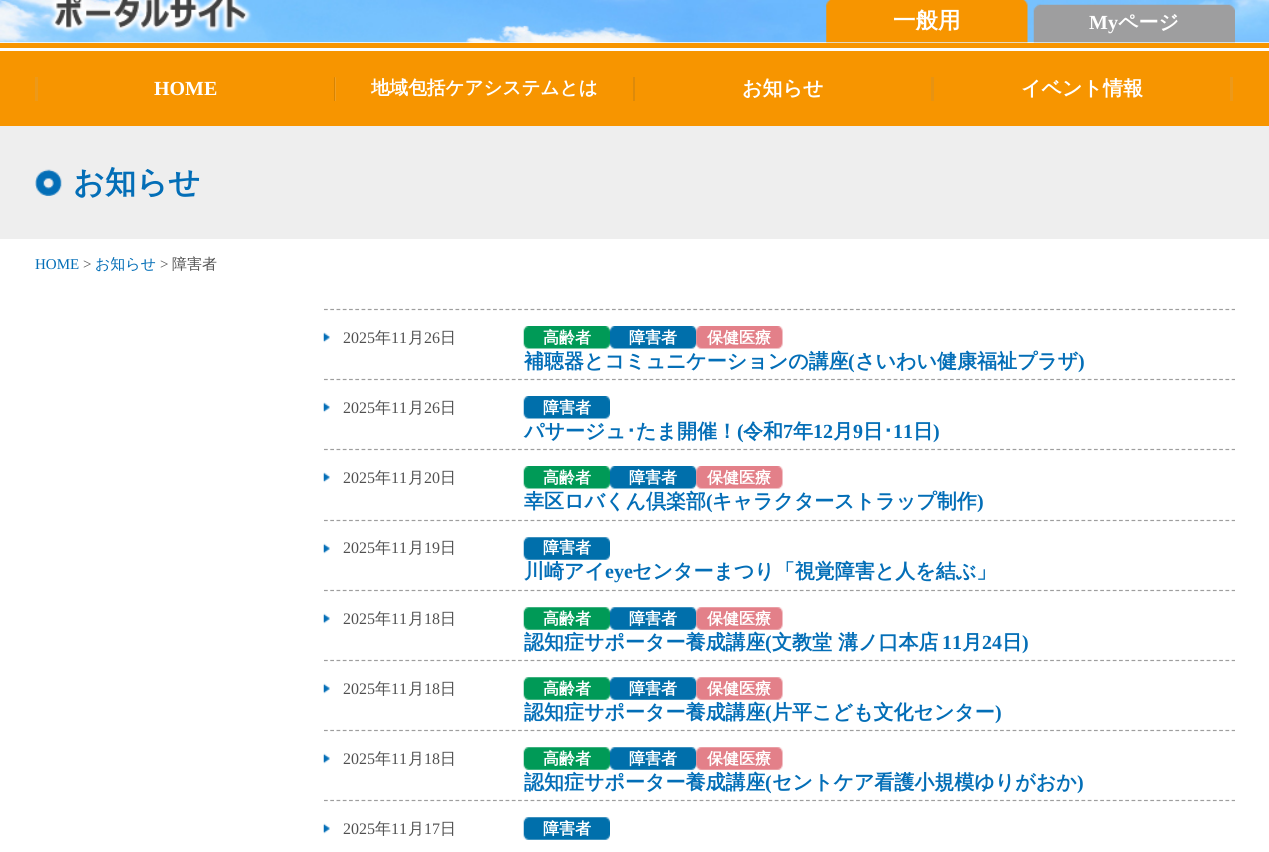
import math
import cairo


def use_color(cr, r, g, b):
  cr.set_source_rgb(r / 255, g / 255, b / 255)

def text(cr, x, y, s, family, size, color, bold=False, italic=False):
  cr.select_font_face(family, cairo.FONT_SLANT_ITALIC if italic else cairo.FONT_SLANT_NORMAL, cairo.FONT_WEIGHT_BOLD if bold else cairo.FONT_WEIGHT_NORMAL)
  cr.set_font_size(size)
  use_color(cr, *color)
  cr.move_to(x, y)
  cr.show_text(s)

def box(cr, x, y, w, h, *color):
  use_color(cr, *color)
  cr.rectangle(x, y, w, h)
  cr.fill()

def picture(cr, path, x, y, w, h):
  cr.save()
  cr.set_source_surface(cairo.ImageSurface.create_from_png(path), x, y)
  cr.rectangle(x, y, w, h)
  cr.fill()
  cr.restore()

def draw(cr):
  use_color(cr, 255, 255, 255)
  cr.paint()
  picture(cr, "img_01.png", 0, 0, 1269, 43)
  picture(cr, "img_02.png", 826, 0, 202, 43)
  picture(cr, "img_03.png", 1033, 4, 202, 39)
  box(cr, 0, 43, 1269, 5, 247, 149, 0)
  box(cr, 0, 51, 1269, 75, 247, 149, 0)
  box(cr, 35, 77, 3, 24, 236, 153, 26)
  picture(cr, "img_04.png", 334, 77, 2, 24)
  box(cr, 633, 77, 2, 24, 221, 138, 10)
  box(cr, 931, 77, 3, 24, 230, 147, 19)
  box(cr, 1230, 77, 3, 24, 236, 153, 26)
  box(cr, 0, 126, 1269, 113, 238, 238, 238)
  picture(cr, "img_05.png", 35, 169, 27, 27)
  cr.new_path()
  cr.move_to(324, 309.5)
  cr.line_to(1235, 309.5)
  use_color(cr, 158, 158, 158)
  cr.set_line_width(1.2)
  cr.set_dash([3.75, 2.51])
  cr.stroke()
  picture(cr, "img_06.png", 323, 332, 7, 11)
  picture(cr, "img_07.png", 523, 326, 87, 23)
  picture(cr, "img_08.png", 610, 326, 87, 23)
  picture(cr, "img_09.png", 696, 326, 87, 23)
  cr.new_path()
  cr.move_to(324, 379.5)
  cr.line_to(1235, 379.5)
  cr.stroke()
  picture(cr, "img_06.png", 323, 402, 7, 11)
  picture(cr, "img_10.png", 523, 396, 87, 23)
  cr.new_path()
  cr.move_to(324, 449.5)
  cr.line_to(1235, 449.5)
  cr.stroke()
  picture(cr, "img_06.png", 323, 472, 7, 11)
  picture(cr, "img_07.png", 523, 466, 87, 23)
  picture(cr, "img_08.png", 610, 466, 87, 23)
  picture(cr, "img_09.png", 696, 466, 87, 23)
  cr.new_path()
  cr.move_to(324, 520.5)
  cr.line_to(1235, 520.5)
  cr.stroke()
  picture(cr, "img_11.png", 323, 543, 7, 11)
  picture(cr, "img_12.png", 523, 537, 87, 23)
  cr.new_path()
  cr.move_to(324, 590.5)
  cr.line_to(1235, 590.5)
  cr.stroke()
  picture(cr, "img_11.png", 323, 613, 7, 11)
  picture(cr, "img_13.png", 523, 607, 87, 23)
  picture(cr, "img_14.png", 610, 607, 87, 23)
  picture(cr, "img_15.png", 696, 607, 87, 23)
  cr.new_path()
  cr.move_to(324, 660.5)
  cr.line_to(1235, 660.5)
  cr.stroke()
  picture(cr, "img_11.png", 323, 683, 7, 11)
  picture(cr, "img_13.png", 523, 677, 87, 23)
  picture(cr, "img_14.png", 610, 677, 87, 23)
  picture(cr, "img_15.png", 696, 677, 87, 23)
  cr.new_path()
  cr.move_to(324, 730.5)
  cr.line_to(1235, 730.5)
  cr.stroke()
  picture(cr, "img_11.png", 323, 753, 7, 11)
  picture(cr, "img_13.png", 523, 747, 87, 23)
  picture(cr, "img_14.png", 610, 747, 87, 23)
  picture(cr, "img_15.png", 696, 747, 87, 23)
  cr.new_path()
  cr.move_to(324, 800.5)
  cr.line_to(1235, 800.5)
  cr.stroke()
  picture(cr, "img_11.png", 323, 823, 7, 11)
  picture(cr, "img_12.png", 523, 817, 87, 23)
  text(cr, 893, 28, "一般用", "WenQuanYi Zen Hei", 22.5, (255, 255, 255), bold=True)
  text(cr, 1089, 29, "My", "Liberation Serif", 20, (255, 255, 255), bold=True)
  text(cr, 1118, 29, "ページ", "WenQuanYi Zen Hei", 20, (255, 255, 255), bold=True)
  text(cr, 154, 95, "HOME", "Liberation Serif", 20, (255, 255, 255), bold=True)
  text(cr, 371, 94, "地域包括ケアシステムとは", "WenQuanYi Zen Hei", 18.6, (255, 255, 255), bold=True)
  text(cr, 742, 95, "お知らせ", "WenQuanYi Zen Hei", 20, (255, 255, 255), bold=True)
  text(cr, 1021, 95, "イベント情報", "WenQuanYi Zen Hei", 20, (255, 255, 255), bold=True)
  text(cr, 73, 193, "お知らせ", "WenQuanYi Zen Hei", 31.25, (3, 110, 183), bold=True)
  text(cr, 35, 269, "HOME", "Liberation Serif", 15, (3, 110, 183))
  text(cr, 83, 269, ">", "Liberation Serif", 15, (80, 80, 80))
  text(cr, 95, 269, "お知らせ", "WenQuanYi Zen Hei Medium", 15, (3, 110, 183))
  text(cr, 160, 269, ">", "Liberation Serif", 15, (80, 80, 80))
  text(cr, 172, 269, "障害者", "WenQuanYi Zen Hei Medium", 15, (80, 80, 80))
  text(cr, 343, 343, "2025", "Liberation Serif", 16, (80, 80, 80))
  text(cr, 375, 343, "年", "WenQuanYi Zen Hei Medium", 16, (80, 80, 80))
  text(cr, 391, 343, "11", "Liberation Serif", 16, (80, 80, 80))
  text(cr, 408, 343, "月", "WenQuanYi Zen Hei Medium", 16, (80, 80, 80))
  text(cr, 424, 343, "26", "Liberation Serif", 16, (80, 80, 80))
  text(cr, 440, 343, "日", "WenQuanYi Zen Hei Medium", 16, (80, 80, 80))
  text(cr, 543, 343, "高齢者", "WenQuanYi Zen Hei", 16, (255, 255, 255), bold=True)
  text(cr, 629, 343, "障害者", "WenQuanYi Zen Hei", 16, (255, 255, 255), bold=True)
  text(cr, 707, 343, "保健医療", "WenQuanYi Zen Hei", 16, (255, 255, 255), bold=True)
  text(cr, 524, 368, "補聴器とコミュニケーションの講座", "WenQuanYi Zen Hei", 20, (3, 110, 183), bold=True)
  text(cr, 848, 368, "(", "Liberation Serif", 20, (3, 110, 183), bold=True)
  text(cr, 855, 368, "さいわい健康福祉プラザ", "WenQuanYi Zen Hei", 20, (3, 110, 183), bold=True)
  text(cr, 1078, 368, ")", "Liberation Serif", 20, (3, 110, 183), bold=True)
  text(cr, 343, 413, "2025", "Liberation Serif", 16, (80, 80, 80))
  text(cr, 375, 413, "年", "WenQuanYi Zen Hei Medium", 16, (80, 80, 80))
  text(cr, 391, 413, "11", "Liberation Serif", 16, (80, 80, 80))
  text(cr, 408, 413, "月", "WenQuanYi Zen Hei Medium", 16, (80, 80, 80))
  text(cr, 424, 413, "26", "Liberation Serif", 16, (80, 80, 80))
  text(cr, 440, 413, "日", "WenQuanYi Zen Hei Medium", 16, (80, 80, 80))
  text(cr, 543, 413, "障害者", "WenQuanYi Zen Hei", 16, (255, 255, 255), bold=True)
  text(cr, 524, 438, "パサージュ", "WenQuanYi Zen Hei", 20, (3, 110, 183), bold=True)
  text(cr, 626, 438, "･", "IPAPGothic", 20, (3, 110, 183), bold=True)
  text(cr, 636, 438, "たま開催！", "WenQuanYi Zen Hei", 20, (3, 110, 183), bold=True)
  text(cr, 737, 438, "(", "Liberation Serif", 20, (3, 110, 183), bold=True)
  text(cr, 743, 438, "令和", "WenQuanYi Zen Hei", 20, (3, 110, 183), bold=True)
  text(cr, 783, 438, "7", "Liberation Serif", 20, (3, 110, 183), bold=True)
  text(cr, 793, 438, "年", "WenQuanYi Zen Hei", 20, (3, 110, 183), bold=True)
  text(cr, 813, 438, "12", "Liberation Serif", 20, (3, 110, 183), bold=True)
  text(cr, 833, 438, "月", "WenQuanYi Zen Hei", 20, (3, 110, 183), bold=True)
  text(cr, 853, 438, "9", "Liberation Serif", 20, (3, 110, 183), bold=True)
  text(cr, 863, 438, "日", "WenQuanYi Zen Hei", 20, (3, 110, 183), bold=True)
  text(cr, 883, 438, "･", "IPAPGothic", 20, (3, 110, 183), bold=True)
  text(cr, 893, 438, "11", "Liberation Serif", 20, (3, 110, 183), bold=True)
  text(cr, 913, 438, "日", "WenQuanYi Zen Hei", 20, (3, 110, 183), bold=True)
  text(cr, 933, 438, ")", "Liberation Serif", 20, (3, 110, 183), bold=True)
  text(cr, 343, 483, "2025", "Liberation Serif", 16, (80, 80, 80))
  text(cr, 375, 483, "年", "WenQuanYi Zen Hei Medium", 16, (80, 80, 80))
  text(cr, 391, 483, "11", "Liberation Serif", 16, (80, 80, 80))
  text(cr, 408, 483, "月", "WenQuanYi Zen Hei Medium", 16, (80, 80, 80))
  text(cr, 424, 483, "20", "Liberation Serif", 16, (80, 80, 80))
  text(cr, 440, 483, "日", "WenQuanYi Zen Hei Medium", 16, (80, 80, 80))
  text(cr, 543, 483, "高齢者", "WenQuanYi Zen Hei", 16, (255, 255, 255), bold=True)
  text(cr, 629, 483, "障害者", "WenQuanYi Zen Hei", 16, (255, 255, 255), bold=True)
  text(cr, 707, 483, "保健医療", "WenQuanYi Zen Hei", 16, (255, 255, 255), bold=True)
  text(cr, 524, 508, "幸区ロバくん倶楽部", "WenQuanYi Zen Hei", 20, (3, 110, 183), bold=True)
  text(cr, 706, 508, "(", "Liberation Serif", 20, (3, 110, 183), bold=True)
  text(cr, 712, 508, "キャラクターストラップ制作", "WenQuanYi Zen Hei", 20, (3, 110, 183), bold=True)
  text(cr, 977, 508, ")", "Liberation Serif", 20, (3, 110, 183), bold=True)
  text(cr, 343, 553, "2025", "Liberation Serif", 16, (80, 80, 80))
  text(cr, 375, 553, "年", "WenQuanYi Zen Hei Medium", 16, (80, 80, 80))
  text(cr, 391, 553, "11", "Liberation Serif", 16, (80, 80, 80))
  text(cr, 408, 553, "月", "WenQuanYi Zen Hei Medium", 16, (80, 80, 80))
  text(cr, 424, 553, "19", "Liberation Serif", 16, (80, 80, 80))
  text(cr, 440, 553, "日", "WenQuanYi Zen Hei Medium", 16, (80, 80, 80))
  text(cr, 543, 553, "障害者", "WenQuanYi Zen Hei", 16, (255, 255, 255), bold=True)
  text(cr, 524, 578, "川崎アイ", "WenQuanYi Zen Hei", 20, (3, 110, 183), bold=True)
  text(cr, 605, 578, "eye", "Liberation Serif", 20, (3, 110, 183), bold=True)
  text(cr, 632, 578, "センターまつり「視覚障害と人を結ぶ」", "WenQuanYi Zen Hei", 20, (3, 110, 183), bold=True)
  text(cr, 343, 624, "2025", "Liberation Serif", 16, (80, 80, 80))
  text(cr, 375, 624, "年", "WenQuanYi Zen Hei Medium", 16, (80, 80, 80))
  text(cr, 391, 624, "11", "Liberation Serif", 16, (80, 80, 80))
  text(cr, 408, 624, "月", "WenQuanYi Zen Hei Medium", 16, (80, 80, 80))
  text(cr, 424, 624, "18", "Liberation Serif", 16, (80, 80, 80))
  text(cr, 440, 624, "日", "WenQuanYi Zen Hei Medium", 16, (80, 80, 80))
  text(cr, 543, 624, "高齢者", "WenQuanYi Zen Hei", 16, (255, 255, 255), bold=True)
  text(cr, 629, 624, "障害者", "WenQuanYi Zen Hei", 16, (255, 255, 255), bold=True)
  text(cr, 707, 624, "保健医療", "WenQuanYi Zen Hei", 16, (255, 255, 255), bold=True)
  text(cr, 524, 649, "認知症サポーター養成講座", "WenQuanYi Zen Hei", 20, (3, 110, 183), bold=True)
  text(cr, 765, 649, "(", "Liberation Serif", 20, (3, 110, 183), bold=True)
  text(cr, 772, 649, "文教堂 溝ノ口本店", "WenQuanYi Zen Hei", 20, (3, 110, 183), bold=True)
  text(cr, 942, 649, "11", "Liberation Serif", 20, (3, 110, 183), bold=True)
  text(cr, 962, 649, "月", "WenQuanYi Zen Hei", 20, (3, 110, 183), bold=True)
  text(cr, 982, 649, "24", "Liberation Serif", 20, (3, 110, 183), bold=True)
  text(cr, 1002, 649, "日", "WenQuanYi Zen Hei", 20, (3, 110, 183), bold=True)
  text(cr, 1022, 649, ")", "Liberation Serif", 20, (3, 110, 183), bold=True)
  text(cr, 343, 694, "2025", "Liberation Serif", 16, (80, 80, 80))
  text(cr, 375, 694, "年", "WenQuanYi Zen Hei Medium", 16, (80, 80, 80))
  text(cr, 391, 694, "11", "Liberation Serif", 16, (80, 80, 80))
  text(cr, 408, 694, "月", "WenQuanYi Zen Hei Medium", 16, (80, 80, 80))
  text(cr, 424, 694, "18", "Liberation Serif", 16, (80, 80, 80))
  text(cr, 440, 694, "日", "WenQuanYi Zen Hei Medium", 16, (80, 80, 80))
  text(cr, 543, 694, "高齢者", "WenQuanYi Zen Hei", 16, (255, 255, 255), bold=True)
  text(cr, 629, 694, "障害者", "WenQuanYi Zen Hei", 16, (255, 255, 255), bold=True)
  text(cr, 707, 694, "保健医療", "WenQuanYi Zen Hei", 16, (255, 255, 255), bold=True)
  text(cr, 524, 719, "認知症サポーター養成講座", "WenQuanYi Zen Hei", 20, (3, 110, 183), bold=True)
  text(cr, 765, 719, "(", "Liberation Serif", 20, (3, 110, 183), bold=True)
  text(cr, 772, 719, "片平こども文化センター", "WenQuanYi Zen Hei", 20, (3, 110, 183), bold=True)
  text(cr, 995, 719, ")", "Liberation Serif", 20, (3, 110, 183), bold=True)
  text(cr, 343, 764, "2025", "Liberation Serif", 16, (80, 80, 80))
  text(cr, 375, 764, "年", "WenQuanYi Zen Hei Medium", 16, (80, 80, 80))
  text(cr, 391, 764, "11", "Liberation Serif", 16, (80, 80, 80))
  text(cr, 408, 764, "月", "WenQuanYi Zen Hei Medium", 16, (80, 80, 80))
  text(cr, 424, 764, "18", "Liberation Serif", 16, (80, 80, 80))
  text(cr, 440, 764, "日", "WenQuanYi Zen Hei Medium", 16, (80, 80, 80))
  text(cr, 543, 764, "高齢者", "WenQuanYi Zen Hei", 16, (255, 255, 255), bold=True)
  text(cr, 629, 764, "障害者", "WenQuanYi Zen Hei", 16, (255, 255, 255), bold=True)
  text(cr, 707, 764, "保健医療", "WenQuanYi Zen Hei", 16, (255, 255, 255), bold=True)
  text(cr, 524, 789, "認知症サポーター養成講座", "WenQuanYi Zen Hei", 20, (3, 110, 183), bold=True)
  text(cr, 765, 789, "(", "Liberation Serif", 20, (3, 110, 183), bold=True)
  text(cr, 772, 789, "セントケア看護小規模ゆりがおか", "WenQuanYi Zen Hei", 20, (3, 110, 183), bold=True)
  text(cr, 1077, 789, ")", "Liberation Serif", 20, (3, 110, 183), bold=True)
  text(cr, 343, 834, "2025", "Liberation Serif", 16, (80, 80, 80))
  text(cr, 375, 834, "年", "WenQuanYi Zen Hei Medium", 16, (80, 80, 80))
  text(cr, 391, 834, "11", "Liberation Serif", 16, (80, 80, 80))
  text(cr, 408, 834, "月", "WenQuanYi Zen Hei Medium", 16, (80, 80, 80))
  text(cr, 424, 834, "17", "Liberation Serif", 16, (80, 80, 80))
  text(cr, 440, 834, "日", "WenQuanYi Zen Hei Medium", 16, (80, 80, 80))
  text(cr, 543, 834, "障害者", "WenQuanYi Zen Hei", 16, (255, 255, 255), bold=True)


surface = cairo.ImageSurface(cairo.FORMAT_RGB24, 1269, 852)
cr = cairo.Context(surface)
options = cairo.FontOptions()
options.set_hint_metrics(cairo.HINT_METRICS_OFF)
options.set_hint_style(cairo.HINT_STYLE_NONE)
cr.set_font_options(options)
cr.set_miter_limit(4)
draw(cr)
surface.write_to_png("out.png")
